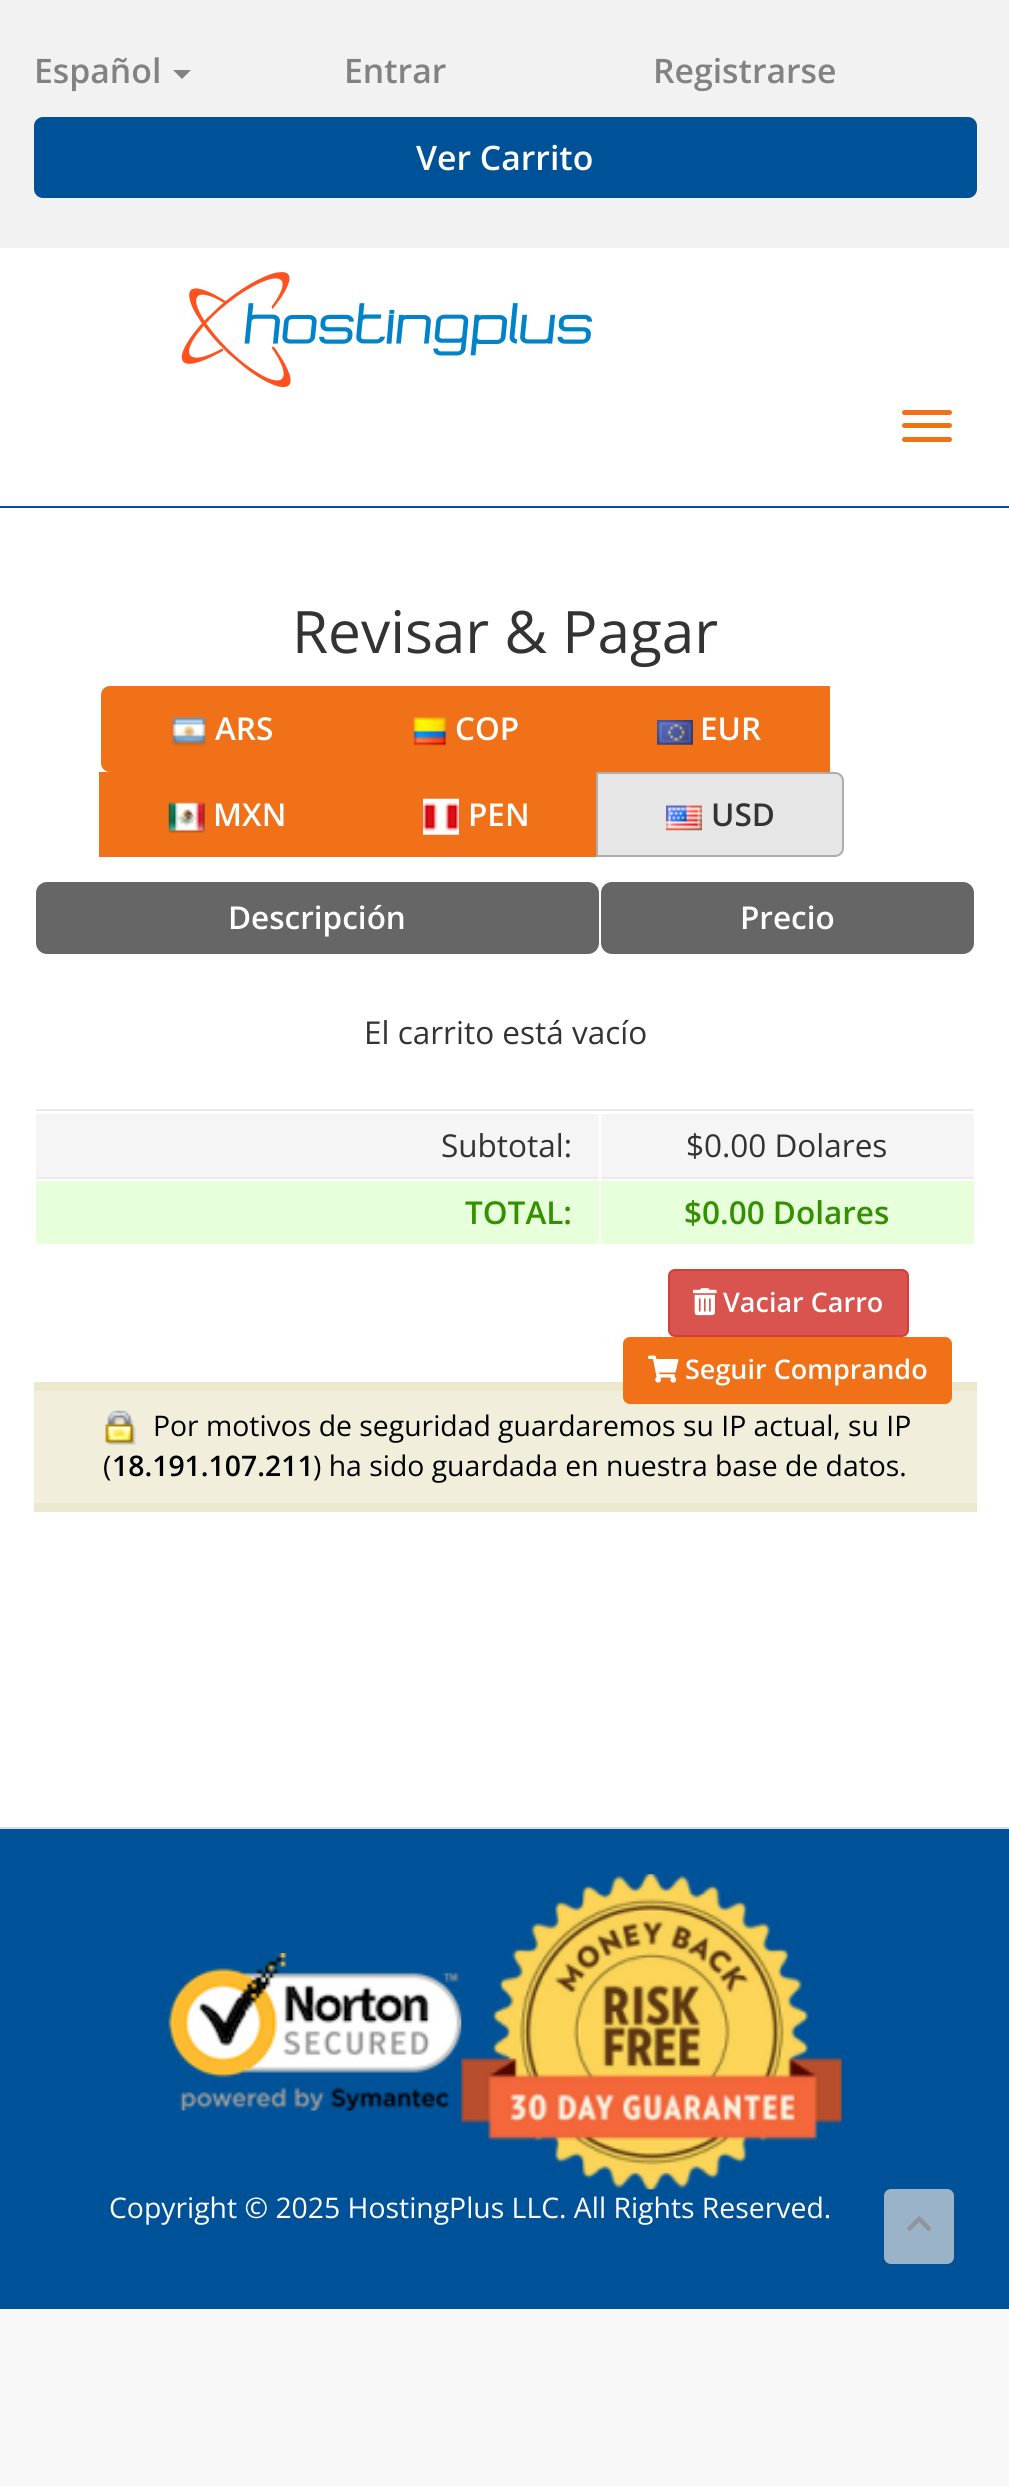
import math
import cairo


def use_color(cr, r, g, b):
  cr.set_source_rgb(r / 255, g / 255, b / 255)

def text(cr, x, y, s, family, size, color, bold=False, italic=False):
  cr.select_font_face(family, cairo.FONT_SLANT_ITALIC if italic else cairo.FONT_SLANT_NORMAL, cairo.FONT_WEIGHT_BOLD if bold else cairo.FONT_WEIGHT_NORMAL)
  cr.set_font_size(size)
  use_color(cr, *color)
  cr.move_to(x, y)
  cr.show_text(s)

def box(cr, x, y, w, h, *color):
  use_color(cr, *color)
  cr.rectangle(x, y, w, h)
  cr.fill()

def round_rect(cr, x, y, w, h, r):
  cr.new_sub_path()
  for i, (u, v) in enumerate([(x + w - r, y + h - r), (x + r, y + h - r), (x + r, y + r), (x + w - r, y + r)]):
    cr.arc(u, v, r, i * math.pi / 2, (i + 1) * math.pi / 2)
  cr.close_path()

def picture(cr, path, x, y, w, h):
  cr.save()
  cr.set_source_surface(cairo.ImageSurface.create_from_png(path), x, y)
  cr.rectangle(x, y, w, h)
  cr.fill()
  cr.restore()

def draw(cr):
  use_color(cr, 248, 248, 248)
  cr.paint()
  box(cr, 0, 248, 1009, 1579, 255, 255, 255)
  box(cr, 0, 506, 1009, 2, 0, 82, 152)
  box(cr, 0, 0, 1009, 248, 242, 242, 242)
  use_color(cr, 130, 130, 130)
  cr.new_path()
  cr.move_to(173, 70)
  cr.line_to(191, 70)
  cr.line_to(182, 79)
  cr.close_path()
  cr.fill()
  use_color(cr, 0, 82, 152)
  round_rect(cr, 35, 118, 941, 79, 8)
  cr.fill_preserve()
  cr.stroke()
  picture(cr, "img_01.png", 181, 272, 412, 115)
  use_color(cr, 240, 113, 24)
  round_rect(cr, 902, 410, 50, 5, 2.5)
  cr.fill()
  round_rect(cr, 902, 423, 50, 5, 2.5)
  cr.fill()
  round_rect(cr, 902, 437, 50, 5, 2.5)
  cr.fill()
  cr.new_path()
  cr.move_to(110, 687)
  cr.line_to(343, 687)
  cr.line_to(343, 771)
  cr.line_to(110, 771)
  cr.curve_to(105.5, 771, 102, 767.5, 102, 763)
  cr.line_to(102, 695)
  cr.curve_to(102, 690.5, 105.5, 687, 110, 687)
  cr.close_path()
  cr.fill_preserve()
  cr.stroke()
  picture(cr, "img_02.png", 171, 717, 36, 30)
  box(cr, 344, 686, 486, 86, 240, 113, 24)
  picture(cr, "img_03.png", 413, 717, 34, 29)
  picture(cr, "img_04.png", 657, 720, 36, 25)
  box(cr, 99, 772, 497, 85, 240, 113, 24)
  picture(cr, "img_05.png", 168, 801, 37, 32)
  picture(cr, "img_06.png", 423, 798, 36, 37)
  use_color(cr, 230, 230, 230)
  cr.new_path()
  cr.move_to(597, 773)
  cr.line_to(835, 773)
  cr.curve_to(839.5, 773, 843, 776.5, 843, 781)
  cr.line_to(843, 848)
  cr.curve_to(843, 852.5, 839.5, 856, 835, 856)
  cr.line_to(597, 856)
  cr.close_path()
  cr.fill_preserve()
  use_color(cr, 173, 173, 173)
  cr.stroke()
  picture(cr, "img_07.png", 666, 805, 36, 26)
  use_color(cr, 102, 102, 102)
  round_rect(cr, 36, 882, 563, 72, 11)
  cr.fill()
  round_rect(cr, 601, 882, 373, 72, 11)
  cr.fill()
  box(cr, 36, 1109, 938, 2, 235, 235, 235)
  box(cr, 36, 1114, 563, 63, 245, 245, 245)
  box(cr, 36, 1177, 563, 2, 235, 235, 235)
  box(cr, 601, 1114, 373, 63, 245, 245, 245)
  box(cr, 601, 1177, 373, 2, 235, 235, 235)
  box(cr, 36, 1181, 563, 63, 231, 255, 218)
  box(cr, 601, 1181, 373, 63, 231, 255, 218)
  use_color(cr, 217, 83, 79)
  round_rect(cr, 669, 1270, 239, 66, 6)
  cr.fill_preserve()
  use_color(cr, 212, 63, 58)
  cr.stroke()
  picture(cr, "img_08.png", 693, 1288, 24, 28)
  box(cr, 34, 1391, 943, 112, 241, 239, 220)
  box(cr, 34, 1382, 943, 9, 235, 232, 205)
  use_color(cr, 240, 113, 24)
  round_rect(cr, 624, 1338, 327, 65, 6)
  cr.fill_preserve()
  cr.stroke()
  picture(cr, "img_09.png", 648, 1355, 31, 28)
  box(cr, 34, 1503, 943, 9, 235, 232, 205)
  picture(cr, "img_10.png", 105, 1410, 31, 35)
  box(cr, 0, 1829, 1009, 480, 0, 82, 152)
  box(cr, 0, 1827, 1009, 2, 221, 221, 221)
  picture(cr, "img_11.png", 168, 1953, 294, 158)
  picture(cr, "img_12.png", 461, 1874, 381, 316)
  use_color(cr, 155, 179, 200)
  round_rect(cr, 884, 2189, 70, 75, 7)
  cr.fill()
  picture(cr, "img_13.png", 907, 2216, 25, 15)
  text(cr, 34, 83, "Español", "Open Sans SemiBold", 33.75, (130, 130, 130))
  text(cr, 344, 83, "Entrar", "Open Sans SemiBold", 33.75, (130, 130, 130))
  text(cr, 653, 83, "Registrarse", "Open Sans SemiBold", 33.75, (130, 130, 130))
  text(cr, 416, 170, "Ver Carrito", "Open Sans SemiBold", 33.75, (255, 255, 255))
  text(cr, 292, 653, "Revisar & Pagar", "Open Sans", 58.5, (51, 51, 51))
  text(cr, 215, 740, "ARS", "Open Sans SemiBold", 31.5, (255, 255, 255))
  text(cr, 455, 740, "COP", "Open Sans SemiBold", 31.5, (255, 255, 255))
  text(cr, 700, 740, "EUR", "Open Sans SemiBold", 31.5, (255, 255, 255))
  text(cr, 213, 826, "MXN", "Open Sans SemiBold", 31.5, (255, 255, 255))
  text(cr, 468, 826, "PEN", "Open Sans SemiBold", 31.5, (255, 255, 255))
  text(cr, 711, 826, "USD", "Open Sans SemiBold", 31.5, (51, 51, 51))
  text(cr, 228, 929, "Descripción", "Open Sans SemiBold", 31.5, (255, 255, 255))
  text(cr, 740, 929, "Precio", "Open Sans SemiBold", 31.5, (255, 255, 255))
  text(cr, 364, 1044, "El carrito está vacío", "Open Sans", 31.5, (51, 51, 51))
  text(cr, 441, 1157, "Subtotal:", "Open Sans", 31.5, (51, 51, 51))
  text(cr, 686, 1157, "$0.00 Dolares", "Open Sans", 31.5, (51, 51, 51))
  text(cr, 465, 1224, "TOTAL:", "Open Sans SemiBold", 31.5, (51, 145, 0))
  text(cr, 684, 1224, "$0.00 Dolares", "Open Sans SemiBold", 31.5, (51, 145, 0))
  text(cr, 723, 1312, "Vaciar Carro", "Open Sans SemiBold", 27, (255, 255, 255))
  text(cr, 685, 1379, "Seguir Comprando", "Open Sans SemiBold", 27, (255, 255, 255))
  text(cr, 153, 1436, "Por motivos de seguridad guardaremos su IP actual, su IP", "Open Sans", 28.35, (0, 0, 0))
  text(cr, 103, 1476, "(", "Open Sans", 28.35, (0, 0, 0))
  text(cr, 112, 1476, "18.191.107.211", "Open Sans SemiBold", 28.35, (0, 0, 0))
  text(cr, 313, 1476, ") ha sido guardada en nuestra base de datos.", "Open Sans", 28.35, (0, 0, 0))
  text(cr, 109, 2218, "Copyright © 2025 HostingPlus LLC. All Rights Reserved.", "Open Sans", 28.35, (255, 255, 255))


surface = cairo.ImageSurface(cairo.FORMAT_RGB24, 1009, 2486)
cr = cairo.Context(surface)
options = cairo.FontOptions()
options.set_hint_metrics(cairo.HINT_METRICS_OFF)
options.set_hint_style(cairo.HINT_STYLE_NONE)
cr.set_font_options(options)
cr.set_miter_limit(4)
draw(cr)
surface.write_to_png("out.png")
